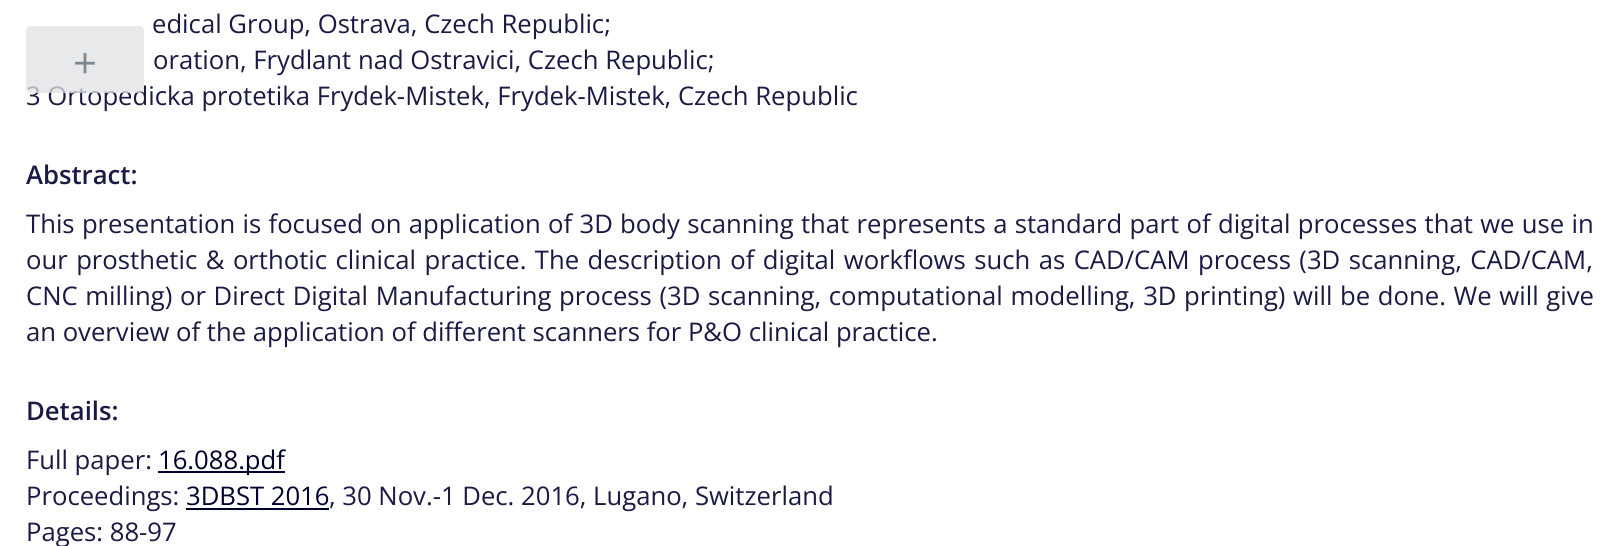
import math
import cairo


def use_color(cr, r, g, b):
  cr.set_source_rgb(r / 255, g / 255, b / 255)

def text(cr, x, y, s, family, size, color, bold=False, italic=False):
  cr.select_font_face(family, cairo.FONT_SLANT_ITALIC if italic else cairo.FONT_SLANT_NORMAL, cairo.FONT_WEIGHT_BOLD if bold else cairo.FONT_WEIGHT_NORMAL)
  cr.set_font_size(size)
  use_color(cr, *color)
  cr.move_to(x, y)
  cr.show_text(s)

def spaced_text(cr, x, y, s, letter, word):
  cr.move_to(x, y)
  for ch in s:
    cr.show_text(ch)
    cr.rel_move_to(letter + word * (ch == ' '), 0)

def box(cr, x, y, w, h, *color):
  use_color(cr, *color)
  cr.rectangle(x, y, w, h)
  cr.fill()

def round_rect(cr, x, y, w, h, r):
  cr.new_sub_path()
  for i, (u, v) in enumerate([(x + w - r, y + h - r), (x + r, y + h - r), (x + r, y + r), (x + w - r, y + r)]):
    cr.arc(u, v, r, i * math.pi / 2, (i + 1) * math.pi / 2)
  cr.close_path()

def draw(cr):
  use_color(cr, 255, 255, 255)
  cr.paint()
  box(cr, 158, 471, 127, 2, 0, 0, 48)
  box(cr, 186, 508, 143, 2, 0, 0, 48)
  text(cr, 152, 33, "edical Group, Ostrava, Czech Republic;", "Open Sans", 25.67, (27, 26, 68))
  text(cr, 153, 69, "oration, Frydlant nad Ostravici, Czech Republic;", "Open Sans", 25.67, (27, 26, 68))
  text(cr, 26, 105, "3 Ortopedicka protetika Frydek-Mistek, Frydek-Mistek, Czech Republic", "Open Sans", 25.67, (27, 26, 68))
  text(cr, 26, 184, "Abstract:", "Open Sans SemiBold", 25.67, (27, 26, 68))
  cr.select_font_face("Open Sans")
  spaced_text(cr, 26, 233, "This presentation is focused on application of 3D body scanning that represents a standard part of digital processes that we use in", 0, 0.65)
  spaced_text(cr, 26, 269, "our prosthetic & orthotic clinical practice. The description of digital workflows such as CAD/CAM process (3D scanning, CAD/CAM,", 0, 1.8)
  spaced_text(cr, 26, 305, "CNC milling) or Direct Digital Manufacturing process (3D scanning, computational modelling, 3D printing) will be done. We will give", 0, 1)
  text(cr, 26, 341, "an overview of the application of different scanners for P&O clinical practice.", "Open Sans", 25.67, (27, 26, 68))
  text(cr, 26, 420, "Details:", "Open Sans SemiBold", 25.67, (27, 26, 68))
  text(cr, 26, 469, "Full paper:", "Open Sans", 25.67, (27, 26, 68))
  text(cr, 158, 469, "16.088.pdf", "Open Sans", 25.67, (0, 0, 48))
  text(cr, 26, 505, "Proceedings:", "Open Sans", 25.67, (27, 26, 68))
  text(cr, 186, 505, "3DBST 2016", "Open Sans", 25.67, (0, 0, 48))
  text(cr, 329, 505, ", 30 Nov.-1 Dec. 2016, Lugano, Switzerland", "Open Sans", 25.67, (27, 26, 68))
  text(cr, 26, 541, "Pages: 88-97", "Open Sans", 25.67, (27, 26, 68))
  cr.set_source_rgba(0.871, 0.882, 0.886, 0.75)
  round_rect(cr, 26, 26, 118, 67, 5)
  cr.fill()
  text(cr, 73, 78, "+", "Open Sans", 42, (127, 136, 143))


surface = cairo.ImageSurface(cairo.FORMAT_RGB24, 1618, 546)
cr = cairo.Context(surface)
options = cairo.FontOptions()
options.set_hint_metrics(cairo.HINT_METRICS_OFF)
options.set_hint_style(cairo.HINT_STYLE_NONE)
cr.set_font_options(options)
cr.set_miter_limit(4)
draw(cr)
surface.write_to_png("out.png")
